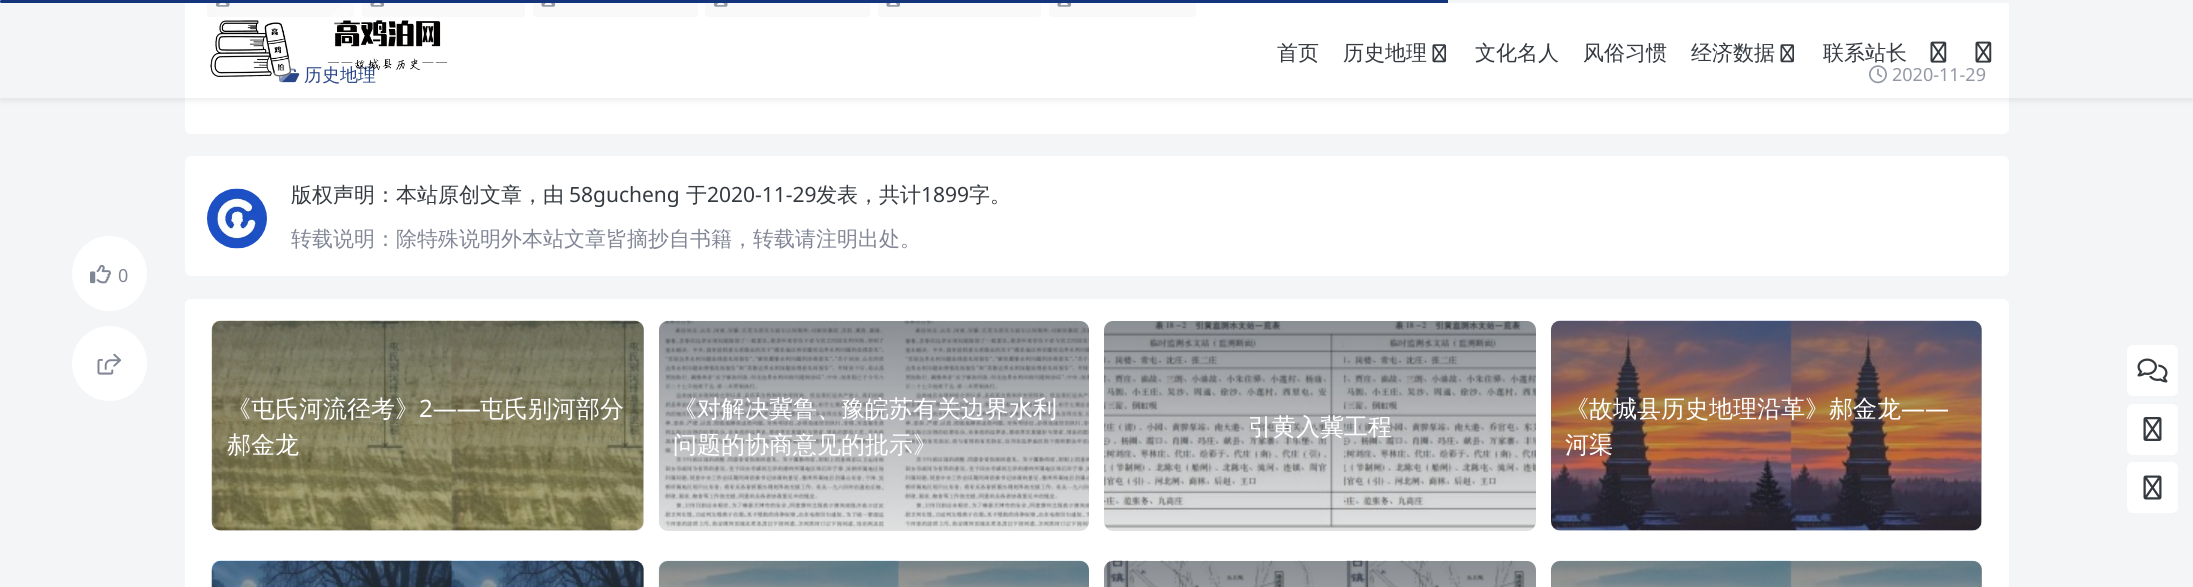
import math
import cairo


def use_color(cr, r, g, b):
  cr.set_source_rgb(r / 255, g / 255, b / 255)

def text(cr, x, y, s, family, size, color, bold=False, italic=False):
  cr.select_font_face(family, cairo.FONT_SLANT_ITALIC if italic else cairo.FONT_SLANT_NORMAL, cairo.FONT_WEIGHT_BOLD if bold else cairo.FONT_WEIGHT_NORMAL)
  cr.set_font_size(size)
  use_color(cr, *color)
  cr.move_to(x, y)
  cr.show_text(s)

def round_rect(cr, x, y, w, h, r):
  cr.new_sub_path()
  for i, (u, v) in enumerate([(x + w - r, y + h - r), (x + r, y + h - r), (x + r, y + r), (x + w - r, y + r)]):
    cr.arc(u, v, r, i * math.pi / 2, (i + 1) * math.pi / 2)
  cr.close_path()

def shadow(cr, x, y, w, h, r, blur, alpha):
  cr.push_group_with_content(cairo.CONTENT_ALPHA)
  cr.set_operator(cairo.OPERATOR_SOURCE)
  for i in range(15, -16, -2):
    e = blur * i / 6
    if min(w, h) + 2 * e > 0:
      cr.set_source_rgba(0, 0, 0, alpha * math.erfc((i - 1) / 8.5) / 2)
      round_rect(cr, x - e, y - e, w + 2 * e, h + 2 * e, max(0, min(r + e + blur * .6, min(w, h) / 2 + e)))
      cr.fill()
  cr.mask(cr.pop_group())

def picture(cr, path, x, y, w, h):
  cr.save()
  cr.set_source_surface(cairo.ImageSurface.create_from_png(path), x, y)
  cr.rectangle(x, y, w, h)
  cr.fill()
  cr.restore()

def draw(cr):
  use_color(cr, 243, 245, 247)
  cr.paint()
  use_color(cr, 255, 255, 255)
  round_rect(cr, 185, -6, 1824, 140, 6)
  cr.fill()
  use_color(cr, 248, 248, 249)
  round_rect(cr, 207, -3, 147, 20, 3)
  cr.fill()
  picture(cr, "img_04.png", 216, 3, 14, 4)
  round_rect(cr, 362, -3, 163, 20, 3)
  cr.fill()
  picture(cr, "img_05.png", 370, 3, 14, 4)
  round_rect(cr, 533, -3, 165, 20, 3)
  cr.fill()
  picture(cr, "img_05.png", 541, 3, 14, 4)
  round_rect(cr, 705, -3, 165, 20, 3)
  cr.fill()
  picture(cr, "img_04.png", 714, 3, 14, 4)
  round_rect(cr, 878, -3, 163, 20, 3)
  cr.fill()
  picture(cr, "img_05.png", 886, 3, 14, 4)
  round_rect(cr, 1049, -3, 147, 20, 3)
  cr.fill()
  picture(cr, "img_05.png", 1057, 3, 14, 4)
  picture(cr, "img_06.png", 279, 68, 21, 15)
  picture(cr, "img_07.png", 1869, 65, 18, 19)
  use_color(cr, 255, 255, 255)
  cr.arc(109.5, 273.5, 37.5, 0, 2 * math.pi)
  cr.fill()
  picture(cr, "img_08.png", 90, 265, 21, 19)
  cr.arc(109.5, 363.5, 37.5, 0, 2 * math.pi)
  cr.fill()
  picture(cr, "img_09.png", 97, 353, 25, 22)
  round_rect(cr, 185, 156, 1824, 120, 6)
  cr.fill()
  picture(cr, "img_10.png", 207, 188, 60, 61)
  round_rect(cr, 185, 299, 1824, 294, 6)
  cr.fill()
  picture(cr, "img_11.png", 211, 320, 433, 211)
  gradient = cairo.LinearGradient(428, 321, 428, 531)
  gradient.add_color_stop_rgba(0, 0.212, 0.243, 0.282, 0.58)
  gradient.add_color_stop_rgba(1, 0.278, 0.29, 0.306, 0.16)
  cr.set_source(gradient)
  round_rect(cr, 212, 321, 432, 210, 9)
  cr.fill()
  picture(cr, "img_12.png", 659, 320, 430, 210)
  gradient = cairo.LinearGradient(874, 321, 874, 531)
  gradient.add_color_stop_rgba(0, 0.212, 0.243, 0.282, 0.58)
  gradient.add_color_stop_rgba(1, 0.278, 0.29, 0.306, 0.16)
  cr.set_source(gradient)
  round_rect(cr, 659, 321, 430, 210, 9)
  cr.fill()
  picture(cr, "img_13.png", 1104, 320, 432, 209)
  gradient = cairo.LinearGradient(1320, 321, 1320, 531)
  gradient.add_color_stop_rgba(0, 0.212, 0.243, 0.282, 0.58)
  gradient.add_color_stop_rgba(1, 0.278, 0.29, 0.306, 0.16)
  cr.set_source(gradient)
  round_rect(cr, 1104, 321, 432, 210, 9)
  cr.fill()
  picture(cr, "img_14.png", 1551, 320, 431, 211)
  gradient = cairo.LinearGradient(1766, 321, 1766, 531)
  gradient.add_color_stop_rgba(0, 0.212, 0.243, 0.282, 0.58)
  gradient.add_color_stop_rgba(1, 0.278, 0.29, 0.306, 0.16)
  cr.set_source(gradient)
  round_rect(cr, 1551, 321, 431, 210, 9)
  cr.fill()
  picture(cr, "img_15.png", 211, 560, 433, 27)
  gradient = cairo.LinearGradient(428, 561, 428, 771)
  gradient.add_color_stop_rgba(0, 0.212, 0.243, 0.282, 0.58)
  gradient.add_color_stop_rgba(1, 0.278, 0.29, 0.306, 0.16)
  cr.set_source(gradient)
  round_rect(cr, 212, 561, 432, 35, 9)
  cr.fill()
  picture(cr, "img_16.png", 658, 560, 431, 27)
  gradient = cairo.LinearGradient(874, 561, 874, 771)
  gradient.add_color_stop_rgba(0, 0.212, 0.243, 0.282, 0.58)
  gradient.add_color_stop_rgba(1, 0.278, 0.29, 0.306, 0.16)
  cr.set_source(gradient)
  round_rect(cr, 659, 561, 430, 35, 9)
  cr.fill()
  picture(cr, "img_17.png", 1104, 560, 425, 27)
  gradient = cairo.LinearGradient(1320, 561, 1320, 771)
  gradient.add_color_stop_rgba(0, 0.212, 0.243, 0.282, 0.58)
  gradient.add_color_stop_rgba(1, 0.278, 0.29, 0.306, 0.16)
  cr.set_source(gradient)
  round_rect(cr, 1104, 561, 432, 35, 9)
  cr.fill()
  picture(cr, "img_18.png", 1551, 560, 431, 27)
  gradient = cairo.LinearGradient(1766, 561, 1766, 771)
  gradient.add_color_stop_rgba(0, 0.212, 0.243, 0.282, 0.58)
  gradient.add_color_stop_rgba(1, 0.278, 0.29, 0.306, 0.16)
  cr.set_source(gradient)
  round_rect(cr, 1551, 561, 431, 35, 9)
  cr.fill()
  use_color(cr, 255, 255, 255)
  round_rect(cr, 2127, 345, 51, 51, 6)
  cr.fill()
  picture(cr, "img_19.png", 2137, 358, 31, 25)
  round_rect(cr, 2127, 404, 51, 51, 6)
  cr.fill()
  picture(cr, "img_20.png", 2143, 417, 19, 24)
  round_rect(cr, 2127, 462, 51, 51, 6)
  cr.fill()
  picture(cr, "img_21.png", 2143, 475, 19, 25)
  text(cr, 304, 81, "历史地理", "WenQuanYi Zen Hei Medium", 18, (3, 38, 115))
  text(cr, 1892, 81, "2020-11-29", "Noto Sans", 18, (128, 134, 149))
  cr.set_source_rgba(1, 1, 1, 0.15)
  cr.rectangle(216, 3, 1769, 81)
  cr.fill()
  cr.save()
  cr.set_fill_rule(cairo.FILL_RULE_EVEN_ODD)
  cr.new_path()
  cr.move_to(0, 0)
  cr.line_to(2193, 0)
  cr.line_to(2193, 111)
  cr.line_to(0, 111)
  cr.close_path()
  cr.move_to(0, 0)
  cr.line_to(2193, 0)
  cr.line_to(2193, 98)
  cr.line_to(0, 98)
  cr.close_path()
  cr.clip()
  use_color(cr, 0, 0, 0)
  shadow(cr, 0, 3, 2193, 98, 0, 3, 0.07)
  cr.restore()
  picture(cr, "img_01.png", 210, 20, 238, 57)
  cr.save()
  cr.rectangle(185, 0, 300, 98)
  cr.clip()
  cr.set_source_rgba(1, 1, 1, 0.4)
  cr.new_path()
  cr.move_to(235, 112)
  cr.line_to(426, -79)
  cr.line_to(434, -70)
  cr.line_to(243, 121)
  cr.close_path()
  cr.fill()
  cr.restore()
  use_color(cr, 243, 245, 247)
  round_rect(cr, 0, 0, 2193, 3, 1.5)
  cr.fill()
  use_color(cr, 3, 38, 115)
  cr.new_path()
  cr.move_to(1.5, 0)
  cr.line_to(1448, 0)
  cr.line_to(1448, 3)
  cr.line_to(1.5, 3)
  cr.curve_to(0.5, 3, 0, 2.5, 0, 1.5)
  cr.curve_to(0, 0.5, 0.5, 0, 1.5, 0)
  cr.close_path()
  cr.fill()
  cr.set_source_rgba(1, 1, 1, 0.07)
  cr.rectangle(0, 0, 1448, 3)
  cr.fill()
  picture(cr, "img_03.png", 1975, 41, 17, 22)
  picture(cr, "img_03.png", 1930, 41, 17, 22)
  text(cr, 1823, 60, "联系站长", "WenQuanYi Zen Hei Medium", 21, (52, 58, 64))
  picture(cr, "img_02.png", 1780, 44, 14, 19)
  text(cr, 1691, 60, "经济数据", "WenQuanYi Zen Hei Medium", 21, (52, 58, 64))
  text(cr, 1583, 60, "风俗习惯", "WenQuanYi Zen Hei Medium", 21, (52, 58, 64))
  text(cr, 1475, 60, "文化名人", "WenQuanYi Zen Hei Medium", 21, (52, 58, 64))
  picture(cr, "img_02.png", 1432, 44, 14, 19)
  text(cr, 1343, 60, "历史地理", "WenQuanYi Zen Hei Medium", 21, (52, 58, 64))
  text(cr, 1277, 60, "首页", "WenQuanYi Zen Hei Medium", 21, (52, 58, 64))
  text(cr, 118, 282, "0", "Noto Sans", 18, (128, 134, 149))
  text(cr, 291, 202, "版权声明：本站原创文章，由", "WenQuanYi Zen Hei Medium", 21, (52, 58, 64))
  text(cr, 569, 202, "58gucheng", "Noto Sans", 21, (52, 58, 64))
  text(cr, 686, 202, "于", "WenQuanYi Zen Hei Medium", 21, (52, 58, 64))
  text(cr, 707, 202, "2020-11-29", "Noto Sans", 21, (52, 58, 64))
  text(cr, 816, 202, "发表，共计", "WenQuanYi Zen Hei Medium", 21, (52, 58, 64))
  text(cr, 921, 202, "1899", "Noto Sans", 21, (52, 58, 64))
  text(cr, 969, 202, "字。", "WenQuanYi Zen Hei Medium", 21, (52, 58, 64))
  text(cr, 291, 246, "转载说明：除特殊说明外本站文章皆摘抄自书籍，转载请注明出处。", "WenQuanYi Zen Hei Medium", 21, (128, 134, 149))
  text(cr, 227, 417, "《屯氏河流径考》", "WenQuanYi Zen Hei Medium", 24, (255, 255, 255))
  text(cr, 419, 417, "2——", "Noto Sans", 24, (255, 255, 255))
  text(cr, 480, 417, "屯氏别河部分", "WenQuanYi Zen Hei Medium", 24, (255, 255, 255))
  text(cr, 227, 453, "郝金龙", "WenQuanYi Zen Hei Medium", 24, (255, 255, 255))
  text(cr, 673, 417, "《对解决冀鲁、豫皖苏有关边界水利", "WenQuanYi Zen Hei Medium", 24, (255, 255, 255))
  text(cr, 673, 453, "问题的协商意见的批示》", "WenQuanYi Zen Hei Medium", 24, (255, 255, 255))
  text(cr, 1248, 435, "引黄入冀工程", "WenQuanYi Zen Hei Medium", 24, (255, 255, 255))
  text(cr, 1565, 417, "《故城县历史地理沿革》郝金龙", "WenQuanYi Zen Hei Medium", 24, (255, 255, 255))
  text(cr, 1901, 417, "——", "Noto Sans", 24, (255, 255, 255))
  text(cr, 1565, 453, "河渠", "WenQuanYi Zen Hei Medium", 24, (255, 255, 255))


surface = cairo.ImageSurface(cairo.FORMAT_RGB24, 2193, 587)
cr = cairo.Context(surface)
options = cairo.FontOptions()
options.set_hint_metrics(cairo.HINT_METRICS_OFF)
options.set_hint_style(cairo.HINT_STYLE_NONE)
cr.set_font_options(options)
cr.set_miter_limit(4)
draw(cr)
surface.write_to_png("out.png")
